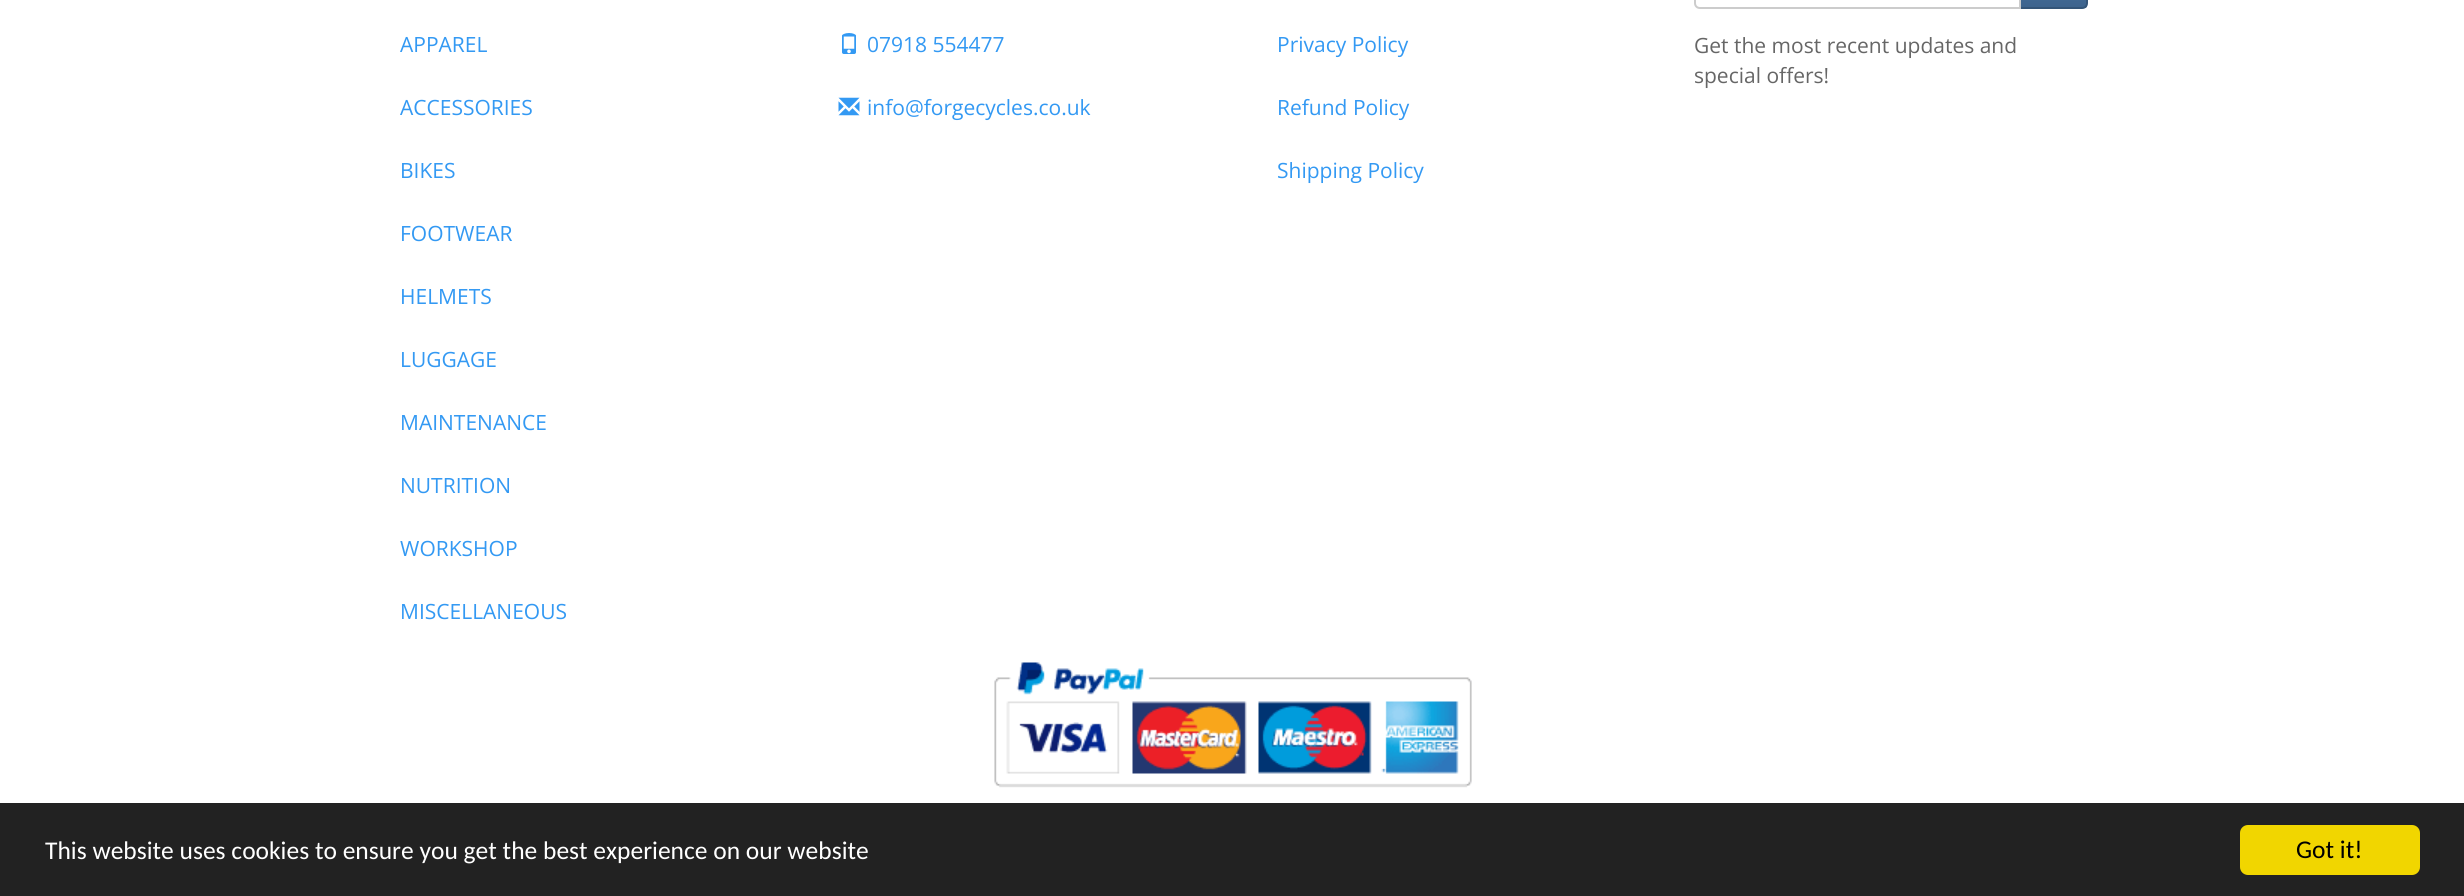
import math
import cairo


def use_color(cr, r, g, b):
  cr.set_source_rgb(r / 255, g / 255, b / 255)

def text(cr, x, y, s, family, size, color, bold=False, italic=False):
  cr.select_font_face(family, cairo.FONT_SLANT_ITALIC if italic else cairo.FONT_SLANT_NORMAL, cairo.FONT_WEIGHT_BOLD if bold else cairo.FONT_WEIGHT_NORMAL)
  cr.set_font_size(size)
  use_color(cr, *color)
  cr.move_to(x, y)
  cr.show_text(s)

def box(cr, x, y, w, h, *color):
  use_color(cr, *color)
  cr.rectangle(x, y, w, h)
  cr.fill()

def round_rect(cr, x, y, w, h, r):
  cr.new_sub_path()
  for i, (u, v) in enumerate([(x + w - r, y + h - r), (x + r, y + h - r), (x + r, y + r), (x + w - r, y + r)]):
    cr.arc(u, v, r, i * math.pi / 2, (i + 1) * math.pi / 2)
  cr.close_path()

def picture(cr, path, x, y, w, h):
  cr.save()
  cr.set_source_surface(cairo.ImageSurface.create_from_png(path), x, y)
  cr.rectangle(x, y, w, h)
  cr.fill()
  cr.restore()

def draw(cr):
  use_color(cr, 255, 255, 255)
  cr.paint()
  picture(cr, "img_01.png", 842, 33, 14, 21)
  picture(cr, "img_02.png", 838, 97, 22, 19)
  cr.save()
  cr.new_path()
  cr.move_to(2019, -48)
  cr.line_to(2082, -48)
  cr.curve_to(2085.5, -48, 2088, -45.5, 2088, -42)
  cr.line_to(2088, 3)
  cr.curve_to(2088, 6.5, 2085.5, 9, 2082, 9)
  cr.line_to(2019, 9)
  cr.close_path()
  cr.clip()
  gradient = cairo.LinearGradient(2054, -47, 2054, 7.5)
  gradient.add_color_stop_rgba(0, 0.427, 0.58, 0.749, 1)
  gradient.add_color_stop_rgba(0.5, 0.267, 0.431, 0.608, 1)
  gradient.add_color_stop_rgba(1, 0.243, 0.392, 0.553, 1)
  cr.set_source(gradient)
  cr.rectangle(2021, 0, 66, 8)
  cr.fill()
  cr.restore()
  cr.new_path()
  cr.move_to(2020, -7)
  cr.line_to(2082, -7)
  cr.curve_to(2085, -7, 2087, -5, 2087, -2)
  cr.line_to(2087, 3)
  cr.curve_to(2087, 6, 2085, 8, 2082, 8)
  cr.line_to(2020, 8)
  cr.close_path()
  use_color(cr, 52, 85, 120)
  cr.stroke()
  use_color(cr, 255, 255, 255)
  cr.new_path()
  cr.move_to(1700, -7)
  cr.line_to(2020, -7)
  cr.line_to(2020, 8)
  cr.line_to(1700, 8)
  cr.curve_to(1697, 8, 1695, 6, 1695, 3)
  cr.line_to(1695, -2)
  cr.curve_to(1695, -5, 1697, -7, 1700, -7)
  cr.close_path()
  cr.fill_preserve()
  use_color(cr, 204, 204, 204)
  cr.stroke()
  picture(cr, "img_03.png", 994, 662, 478, 126)
  box(cr, 0, 803, 2464, 93, 34, 34, 34)
  use_color(cr, 241, 214, 0)
  round_rect(cr, 2240, 825, 180, 50, 8)
  cr.fill()
  text(cr, 400, 52, "APPAREL", "Open Sans", 21, (51, 153, 243))
  text(cr, 400, 115, "ACCESSORIES", "Open Sans", 21, (51, 153, 243))
  text(cr, 400, 178, "BIKES", "Open Sans", 21, (51, 153, 243))
  text(cr, 400, 241, "FOOTWEAR", "Open Sans", 21, (51, 153, 243))
  text(cr, 400, 304, "HELMETS", "Open Sans", 21, (51, 153, 243))
  text(cr, 400, 367, "LUGGAGE", "Open Sans", 21, (51, 153, 243))
  text(cr, 400, 430, "MAINTENANCE", "Open Sans", 21, (51, 153, 243))
  text(cr, 400, 493, "NUTRITION", "Open Sans", 21, (51, 153, 243))
  text(cr, 400, 556, "WORKSHOP", "Open Sans", 21, (51, 153, 243))
  text(cr, 400, 619, "MISCELLANEOUS", "Open Sans", 21, (51, 153, 243))
  text(cr, 867, 52, "07918 554477", "Open Sans", 21, (51, 153, 243))
  text(cr, 867, 115, "info@forgecycles.co.uk", "Open Sans", 21, (51, 153, 243))
  text(cr, 1277, 52, "Privacy Policy", "Open Sans", 21, (51, 153, 243))
  text(cr, 1277, 115, "Refund Policy", "Open Sans", 21, (51, 153, 243))
  text(cr, 1277, 178, "Shipping Policy", "Open Sans", 21, (51, 153, 243))
  text(cr, 1694, 53, "Get the most recent updates and", "Open Sans", 21, (102, 102, 102))
  text(cr, 1694, 83, "special offers!", "Open Sans", 21, (102, 102, 102))
  text(cr, 45, 859, "This website uses cookies to ensure you get the best experience on our website", "Carlito", 25.5, (255, 255, 255))
  text(cr, 2296, 858, "Got it!", "Carlito", 25.5, (0, 0, 0))


surface = cairo.ImageSurface(cairo.FORMAT_RGB24, 2464, 896)
cr = cairo.Context(surface)
options = cairo.FontOptions()
options.set_hint_metrics(cairo.HINT_METRICS_OFF)
options.set_hint_style(cairo.HINT_STYLE_NONE)
cr.set_font_options(options)
cr.set_miter_limit(4)
draw(cr)
surface.write_to_png("out.png")
